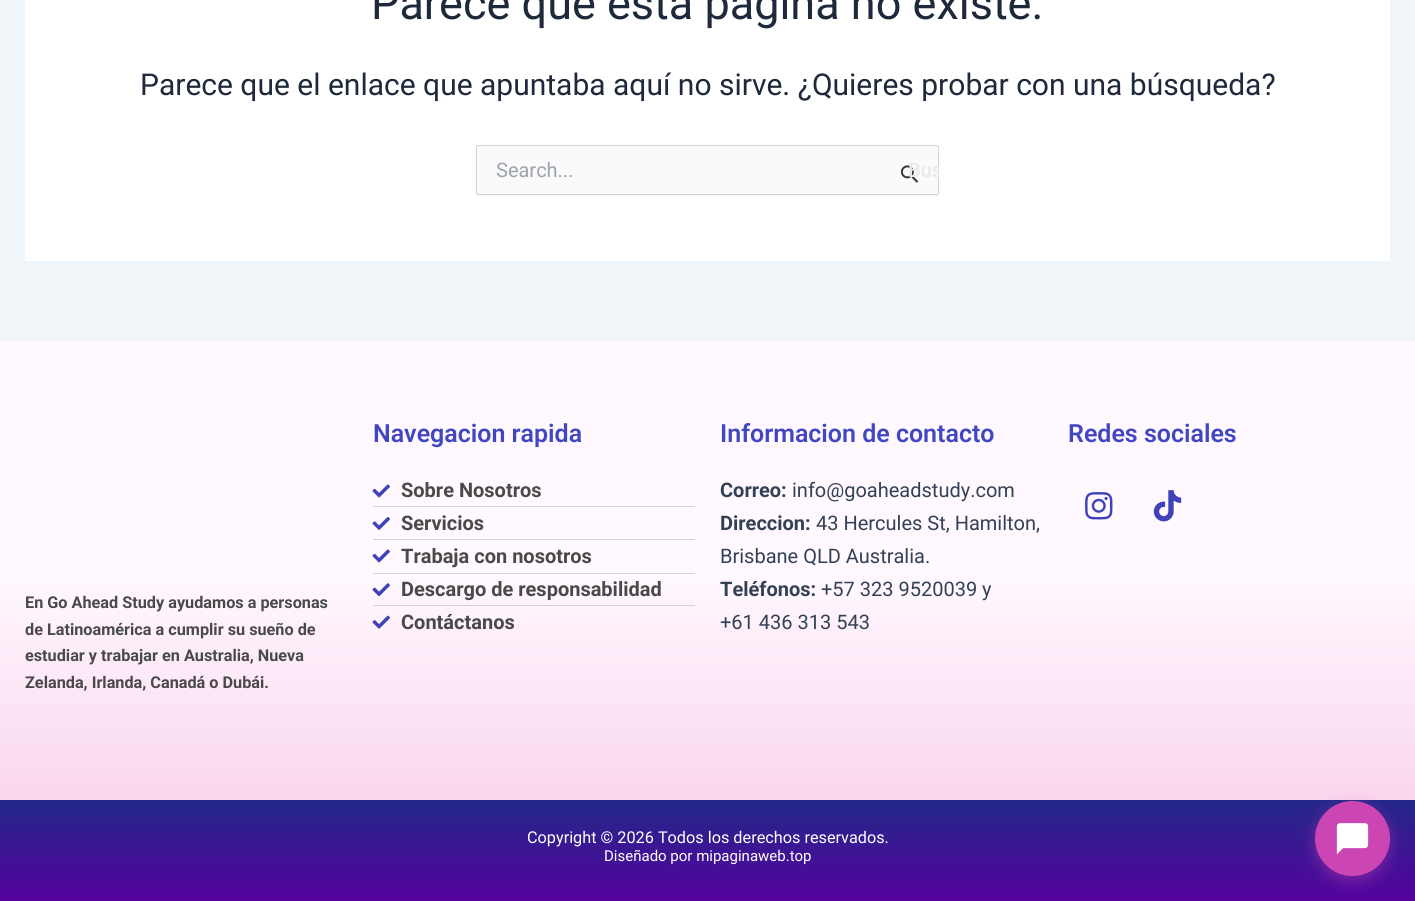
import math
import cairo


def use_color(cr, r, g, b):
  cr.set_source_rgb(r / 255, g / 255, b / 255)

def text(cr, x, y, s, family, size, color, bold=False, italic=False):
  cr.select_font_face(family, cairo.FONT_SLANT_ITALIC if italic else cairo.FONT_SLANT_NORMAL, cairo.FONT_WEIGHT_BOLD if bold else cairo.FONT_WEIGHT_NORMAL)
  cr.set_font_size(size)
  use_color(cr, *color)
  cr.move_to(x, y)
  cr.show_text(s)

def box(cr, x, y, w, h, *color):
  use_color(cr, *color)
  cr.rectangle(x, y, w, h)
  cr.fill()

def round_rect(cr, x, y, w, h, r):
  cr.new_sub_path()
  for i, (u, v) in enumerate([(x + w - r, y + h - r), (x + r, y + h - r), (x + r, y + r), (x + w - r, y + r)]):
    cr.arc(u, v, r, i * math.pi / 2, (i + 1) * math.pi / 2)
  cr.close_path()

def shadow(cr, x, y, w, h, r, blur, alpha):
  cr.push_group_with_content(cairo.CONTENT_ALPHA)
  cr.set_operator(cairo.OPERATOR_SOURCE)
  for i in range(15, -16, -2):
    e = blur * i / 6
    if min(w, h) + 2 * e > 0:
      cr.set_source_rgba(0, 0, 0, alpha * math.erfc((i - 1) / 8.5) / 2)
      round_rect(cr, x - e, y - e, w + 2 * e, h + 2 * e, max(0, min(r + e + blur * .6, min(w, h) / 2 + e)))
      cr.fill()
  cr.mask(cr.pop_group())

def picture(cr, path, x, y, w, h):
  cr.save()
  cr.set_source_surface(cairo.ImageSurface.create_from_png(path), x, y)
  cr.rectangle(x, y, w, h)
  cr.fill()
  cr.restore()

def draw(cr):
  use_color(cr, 240, 245, 250)
  cr.paint()
  box(cr, 25, 0, 1365, 261, 255, 255, 255)
  use_color(cr, 0, 0, 0)
  shadow(cr, 476, 146, 463, 50, 2.5, 1, 0.05)
  use_color(cr, 250, 250, 250)
  round_rect(cr, 476.5, 145.5, 462, 49, 2)
  cr.fill_preserve()
  use_color(cr, 209, 213, 219)
  cr.set_line_width(1)
  cr.stroke()
  picture(cr, "img_01.png", 900, 165, 18, 18)
  gradient = cairo.LinearGradient(708, 341, 708, 800)
  gradient.add_color_stop_rgba(0.51, 1, 0.973, 1, 1)
  gradient.add_color_stop_rgba(1, 0.98, 0.839, 0.929, 1)
  cr.set_source(gradient)
  cr.rectangle(0, 341, 1415, 459)
  cr.fill()
  picture(cr, "img_02.png", 372, 484, 18, 14)
  box(cr, 373, 506, 322, 1, 211, 211, 211)
  picture(cr, "img_03.png", 372, 517, 18, 13)
  box(cr, 373, 539, 322, 1, 211, 211, 211)
  picture(cr, "img_02.png", 372, 549, 18, 14)
  box(cr, 373, 573, 322, 1, 211, 211, 211)
  picture(cr, "img_04.png", 372, 583, 18, 14)
  box(cr, 373, 605, 322, 1, 211, 211, 211)
  picture(cr, "img_05.png", 372, 615, 18, 14)
  picture(cr, "img_06.png", 1085, 492, 28, 28)
  picture(cr, "img_07.png", 1153, 490, 29, 32)
  gradient = cairo.LinearGradient(708, 800, 708, 901)
  gradient.add_color_stop_rgba(0, 0.137, 0.157, 0.537, 1)
  gradient.add_color_stop_rgba(1, 0.333, 0.008, 0.62, 1)
  cr.set_source(gradient)
  cr.rectangle(0, 800, 1415, 101)
  cr.fill()
  use_color(cr, 203, 69, 179)
  shadow(cr, 1315, 806, 75, 75, 37.5, 7.5, 0.4)
  use_color(cr, 203, 69, 179)
  cr.arc(1352.5, 838.5, 37.5, 0, 2 * math.pi)
  cr.fill()
  picture(cr, "img_08.png", 1336, 823, 33, 32)
  text(cr, 371, 19, "Parece que esta página no existe.", "Roboto", 45, (30, 41, 59))
  text(cr, 140, 95, "Parece que el enlace que apuntaba aquí no sirve. ¿Quieres probar con una búsqueda?", "Roboto", 30, (30, 41, 59))
  text(cr, 496, 177, "Search...", "Roboto", 20, (156, 163, 175))
  cr.save()
  round_rect(cr, 883, 145, 56, 53, 2.5)
  cr.clip()
  text(cr, 908, 177, "Bus", "Roboto Medium", 20, (233, 233, 233))
  cr.restore()
  text(cr, 373, 442, "Navegacion rapida", "Roboto SemiBold", 25, (65, 71, 195))
  text(cr, 401, 497, "Sobre Nosotros", "Roboto", 20, (73, 73, 73), bold=True)
  text(cr, 401, 530, "Servicios", "Roboto", 20, (73, 73, 73), bold=True)
  text(cr, 401, 563, "Trabaja con nosotros", "Roboto", 20, (73, 73, 73), bold=True)
  text(cr, 401, 596, "Descargo de responsabilidad", "Roboto", 20, (73, 73, 73), bold=True)
  text(cr, 401, 629, "Contáctanos", "Roboto", 20, (73, 73, 73), bold=True)
  text(cr, 720, 442, "Informacion de contacto", "Roboto SemiBold", 25, (65, 71, 195))
  text(cr, 720, 497, "Correo:", "Roboto", 20, (51, 65, 85), bold=True)
  text(cr, 792, 497, "info@goaheadstudy.com", "Roboto", 20, (51, 65, 85))
  text(cr, 720, 530, "Direccion:", "Roboto", 20, (51, 65, 85), bold=True)
  text(cr, 816, 530, "43 Hercules St, Hamilton,", "Roboto", 20, (51, 65, 85))
  text(cr, 720, 563, "Brisbane QLD Australia.", "Roboto", 20, (51, 65, 85))
  text(cr, 720, 596, "Teléfonos:", "Roboto", 20, (51, 65, 85), bold=True)
  text(cr, 821, 596, "+57 323 9520039 y", "Roboto", 20, (51, 65, 85))
  text(cr, 720, 629, "+61 436 313 543", "Roboto", 20, (51, 65, 85))
  text(cr, 1068, 442, "Redes sociales", "Roboto SemiBold", 25, (65, 71, 195))
  text(cr, 25, 608, "En Go Ahead Study ayudamos a personas", "Roboto", 16.25, (73, 73, 73), bold=True)
  text(cr, 25, 635, "de Latinoamérica a cumplir su sueño de", "Roboto", 16.25, (73, 73, 73), bold=True)
  text(cr, 25, 661, "estudiar y trabajar en Australia, Nueva", "Roboto", 16.25, (73, 73, 73), bold=True)
  text(cr, 25, 688, "Zelanda, Irlanda, Canadá o Dubái.", "Roboto", 16.25, (73, 73, 73), bold=True)
  text(cr, 527, 843, "Copyright © 2026 Todos los derechos reservados.", "Roboto", 16.25, (255, 255, 255))
  text(cr, 604, 861, "Diseñado por mipaginaweb.top", "Roboto", 15, (255, 255, 255))


surface = cairo.ImageSurface(cairo.FORMAT_RGB24, 1415, 901)
cr = cairo.Context(surface)
options = cairo.FontOptions()
options.set_hint_metrics(cairo.HINT_METRICS_OFF)
options.set_hint_style(cairo.HINT_STYLE_NONE)
cr.set_font_options(options)
cr.set_miter_limit(4)
draw(cr)
surface.write_to_png("out.png")
